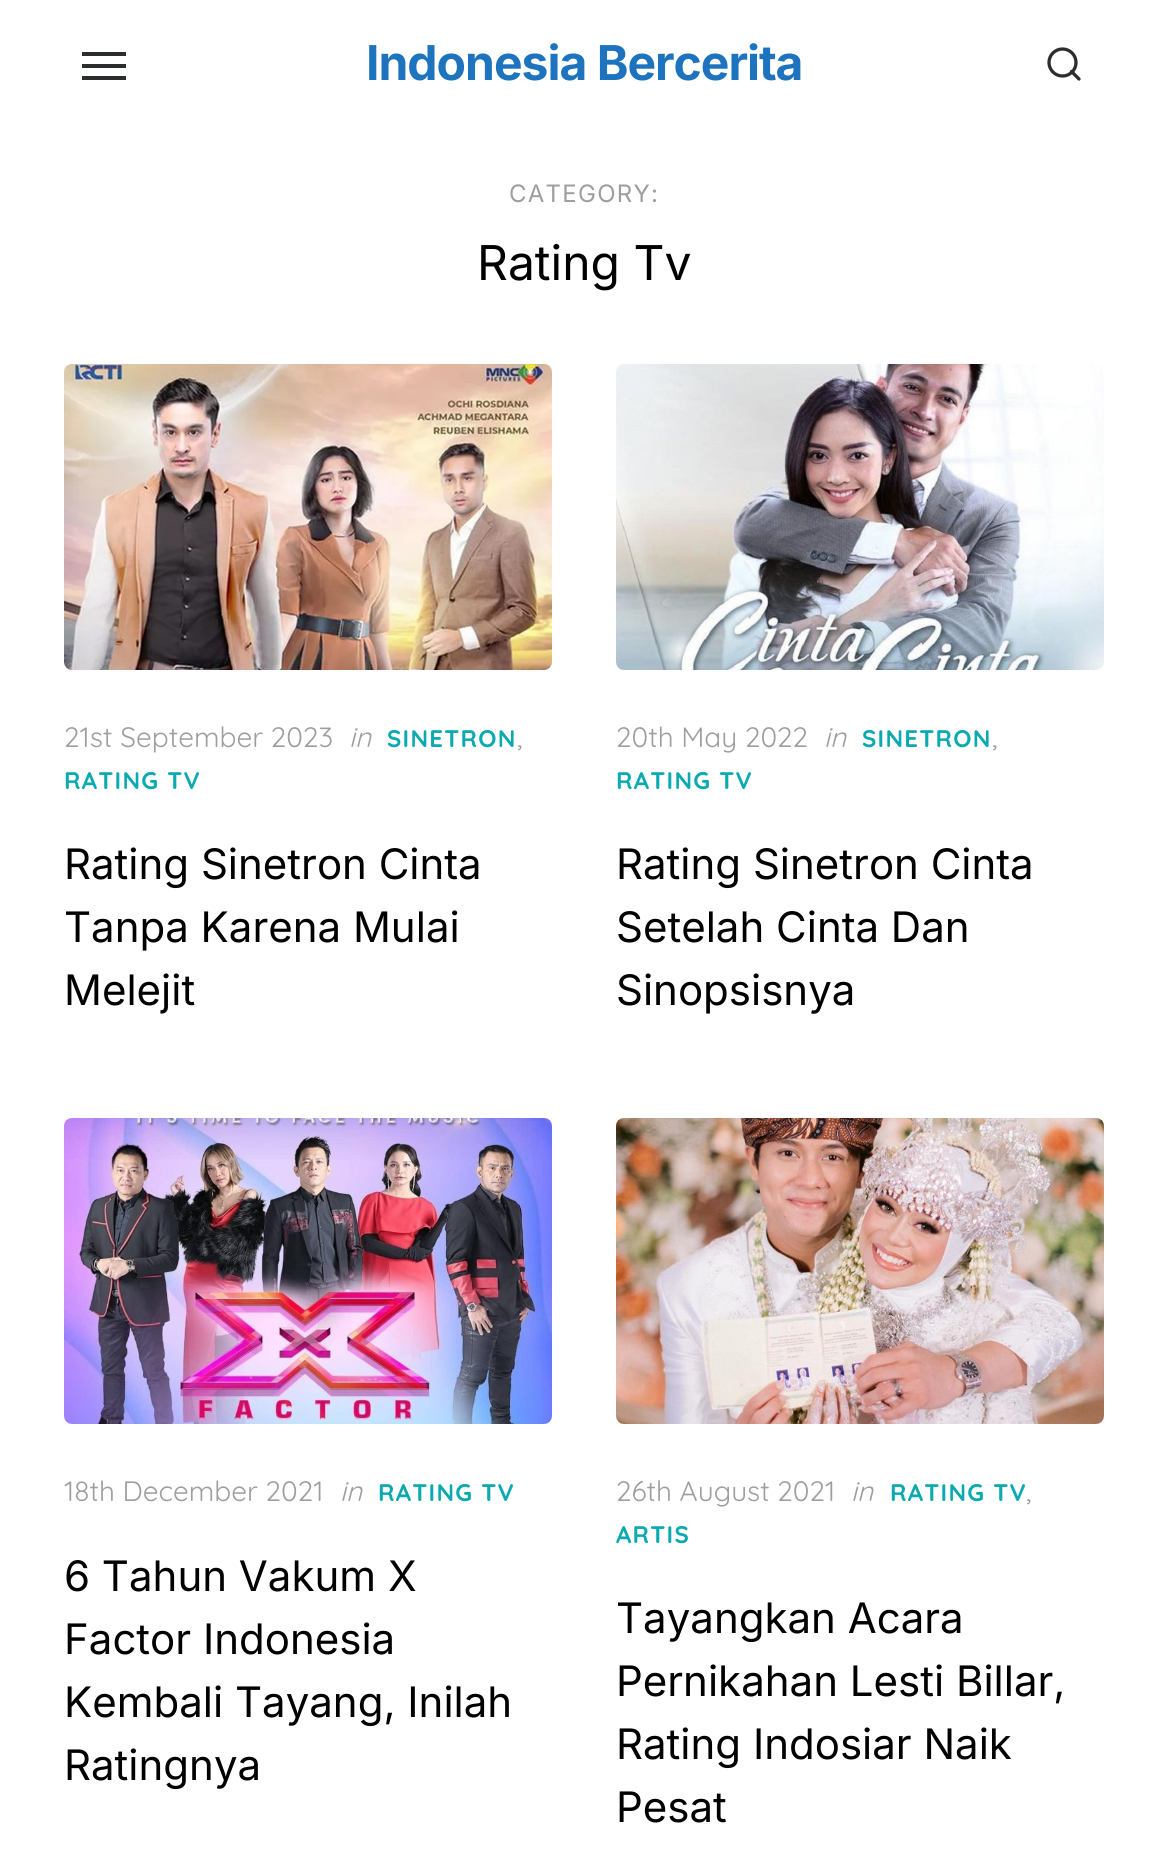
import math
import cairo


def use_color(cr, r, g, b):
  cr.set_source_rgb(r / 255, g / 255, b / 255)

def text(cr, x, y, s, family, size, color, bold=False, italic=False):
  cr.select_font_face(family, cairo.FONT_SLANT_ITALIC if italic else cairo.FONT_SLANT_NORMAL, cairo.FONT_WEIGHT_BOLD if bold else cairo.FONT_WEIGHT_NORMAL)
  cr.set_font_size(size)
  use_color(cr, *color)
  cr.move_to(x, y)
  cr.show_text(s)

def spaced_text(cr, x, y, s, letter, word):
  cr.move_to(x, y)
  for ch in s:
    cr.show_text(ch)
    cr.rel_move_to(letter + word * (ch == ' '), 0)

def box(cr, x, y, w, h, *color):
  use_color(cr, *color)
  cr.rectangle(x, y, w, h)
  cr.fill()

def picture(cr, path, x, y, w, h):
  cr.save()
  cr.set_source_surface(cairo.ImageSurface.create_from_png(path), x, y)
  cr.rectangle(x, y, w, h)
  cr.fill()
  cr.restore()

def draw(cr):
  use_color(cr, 255, 255, 255)
  cr.paint()
  box(cr, 82, 64, 44, 4, 44, 45, 46)
  box(cr, 82, 52, 44, 4, 44, 45, 46)
  box(cr, 82, 76, 44, 4, 44, 45, 46)
  cr.arc(1062.5, 62.5, 13.5, 0, 2 * math.pi)
  cr.set_line_width(3.3)
  cr.stroke()
  cr.new_path()
  cr.move_to(1079, 79)
  cr.line_to(1071.5, 71.5)
  cr.set_line_cap(cairo.LINE_CAP_ROUND)
  cr.set_line_join(cairo.LINE_JOIN_ROUND)
  cr.stroke()
  picture(cr, "img_01.png", 64, 364, 488, 306)
  picture(cr, "img_02.png", 616, 364, 488, 306)
  picture(cr, "img_03.png", 64, 1118, 488, 306)
  picture(cr, "img_04.png", 616, 1118, 488, 306)
  cr.select_font_face("Inter", cairo.FONT_SLANT_NORMAL, cairo.FONT_WEIGHT_BOLD)
  cr.set_font_size(48)
  use_color(cr, 30, 115, 190)
  spaced_text(cr, 366, 80, "Indonesia Bercerita", -1, 0)
  cr.select_font_face("Inter")
  cr.set_font_size(24)
  use_color(cr, 157, 158, 158)
  spaced_text(cr, 509, 202, "CATEGORY:", 1.25, 0)
  text(cr, 477, 280, "Rating Tv", "Inter", 48, (0, 0, 0))
  text(cr, 64, 747, "21st September 2023", "Quicksand", 28, (157, 158, 158))
  text(cr, 349, 747, "in", "Quicksand", 28, (157, 158, 158), italic=True)
  cr.select_font_face("Quicksand", cairo.FONT_SLANT_NORMAL, cairo.FONT_WEIGHT_BOLD)
  cr.set_font_size(24)
  use_color(cr, 11, 170, 176)
  spaced_text(cr, 387, 747, "SINETRON", 1.25, 0)
  text(cr, 517, 747, ",", "Quicksand", 28, (157, 158, 158))
  cr.select_font_face("Quicksand", cairo.FONT_SLANT_NORMAL, cairo.FONT_WEIGHT_BOLD)
  cr.set_font_size(24)
  use_color(cr, 11, 170, 176)
  spaced_text(cr, 64, 789, "RATING TV", 1.25, 0)
  text(cr, 64, 879, "Rating Sinetron Cinta", "Inter", 42, (0, 0, 0))
  text(cr, 64, 942, "Tanpa Karena Mulai", "Inter", 42, (0, 0, 0))
  text(cr, 64, 1005, "Melejit", "Inter", 42, (0, 0, 0))
  text(cr, 616, 747, "20th May 2022", "Quicksand", 28, (157, 158, 158))
  text(cr, 824, 747, "in", "Quicksand", 28, (157, 158, 158), italic=True)
  cr.select_font_face("Quicksand", cairo.FONT_SLANT_NORMAL, cairo.FONT_WEIGHT_BOLD)
  cr.set_font_size(24)
  use_color(cr, 11, 170, 176)
  spaced_text(cr, 862, 747, "SINETRON", 1.25, 0)
  text(cr, 992, 747, ",", "Quicksand", 28, (157, 158, 158))
  cr.select_font_face("Quicksand", cairo.FONT_SLANT_NORMAL, cairo.FONT_WEIGHT_BOLD)
  cr.set_font_size(24)
  use_color(cr, 11, 170, 176)
  spaced_text(cr, 616, 789, "RATING TV", 1.25, 0)
  text(cr, 616, 879, "Rating Sinetron Cinta", "Inter", 42, (0, 0, 0))
  text(cr, 616, 942, "Setelah Cinta Dan", "Inter", 42, (0, 0, 0))
  text(cr, 616, 1005, "Sinopsisnya", "Inter", 42, (0, 0, 0))
  text(cr, 64, 1501, "18th December 2021", "Quicksand", 28, (157, 158, 158))
  text(cr, 340, 1501, "in", "Quicksand", 28, (157, 158, 158), italic=True)
  cr.select_font_face("Quicksand", cairo.FONT_SLANT_NORMAL, cairo.FONT_WEIGHT_BOLD)
  cr.set_font_size(24)
  use_color(cr, 11, 170, 176)
  spaced_text(cr, 378, 1501, "RATING TV", 1.25, 0)
  text(cr, 64, 1591, "6 Tahun Vakum X", "Inter", 42, (0, 0, 0))
  text(cr, 64, 1654, "Factor Indonesia", "Inter", 42, (0, 0, 0))
  text(cr, 64, 1717, "Kembali Tayang, Inilah", "Inter", 42, (0, 0, 0))
  text(cr, 64, 1780, "Ratingnya", "Inter", 42, (0, 0, 0))
  text(cr, 616, 1501, "26th August 2021", "Quicksand", 28, (157, 158, 158))
  text(cr, 851, 1501, "in", "Quicksand", 28, (157, 158, 158), italic=True)
  cr.select_font_face("Quicksand", cairo.FONT_SLANT_NORMAL, cairo.FONT_WEIGHT_BOLD)
  cr.set_font_size(24)
  use_color(cr, 11, 170, 176)
  spaced_text(cr, 890, 1501, "RATING TV", 1.25, 0)
  text(cr, 1026, 1501, ",", "Quicksand", 28, (157, 158, 158))
  cr.select_font_face("Quicksand", cairo.FONT_SLANT_NORMAL, cairo.FONT_WEIGHT_BOLD)
  cr.set_font_size(24)
  use_color(cr, 11, 170, 176)
  spaced_text(cr, 616, 1543, "ARTIS", 1.25, 0)
  text(cr, 616, 1633, "Tayangkan Acara", "Inter", 42, (0, 0, 0))
  text(cr, 616, 1696, "Pernikahan Lesti Billar,", "Inter", 42, (0, 0, 0))
  text(cr, 616, 1759, "Rating Indosiar Naik", "Inter", 42, (0, 0, 0))
  text(cr, 616, 1822, "Pesat", "Inter", 42, (0, 0, 0))


surface = cairo.ImageSurface(cairo.FORMAT_RGB24, 1167, 1871)
cr = cairo.Context(surface)
options = cairo.FontOptions()
options.set_hint_metrics(cairo.HINT_METRICS_OFF)
options.set_hint_style(cairo.HINT_STYLE_NONE)
cr.set_font_options(options)
cr.set_miter_limit(4)
draw(cr)
surface.write_to_png("out.png")
